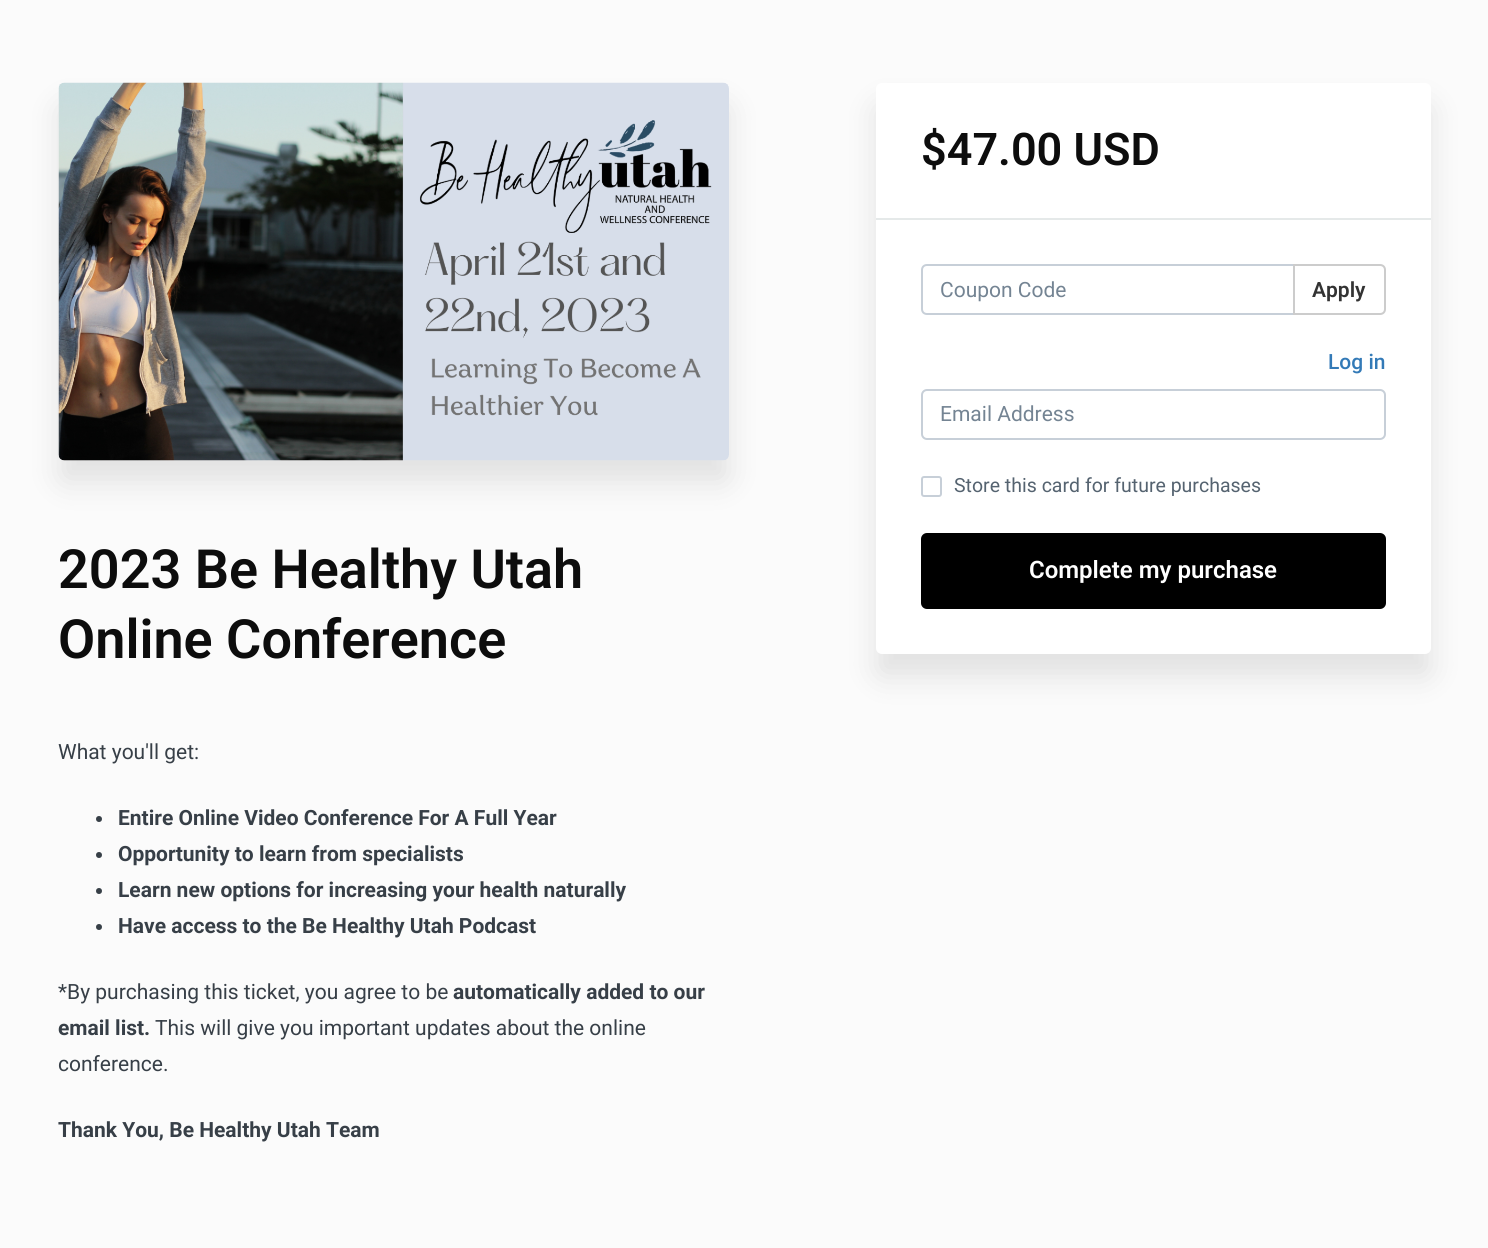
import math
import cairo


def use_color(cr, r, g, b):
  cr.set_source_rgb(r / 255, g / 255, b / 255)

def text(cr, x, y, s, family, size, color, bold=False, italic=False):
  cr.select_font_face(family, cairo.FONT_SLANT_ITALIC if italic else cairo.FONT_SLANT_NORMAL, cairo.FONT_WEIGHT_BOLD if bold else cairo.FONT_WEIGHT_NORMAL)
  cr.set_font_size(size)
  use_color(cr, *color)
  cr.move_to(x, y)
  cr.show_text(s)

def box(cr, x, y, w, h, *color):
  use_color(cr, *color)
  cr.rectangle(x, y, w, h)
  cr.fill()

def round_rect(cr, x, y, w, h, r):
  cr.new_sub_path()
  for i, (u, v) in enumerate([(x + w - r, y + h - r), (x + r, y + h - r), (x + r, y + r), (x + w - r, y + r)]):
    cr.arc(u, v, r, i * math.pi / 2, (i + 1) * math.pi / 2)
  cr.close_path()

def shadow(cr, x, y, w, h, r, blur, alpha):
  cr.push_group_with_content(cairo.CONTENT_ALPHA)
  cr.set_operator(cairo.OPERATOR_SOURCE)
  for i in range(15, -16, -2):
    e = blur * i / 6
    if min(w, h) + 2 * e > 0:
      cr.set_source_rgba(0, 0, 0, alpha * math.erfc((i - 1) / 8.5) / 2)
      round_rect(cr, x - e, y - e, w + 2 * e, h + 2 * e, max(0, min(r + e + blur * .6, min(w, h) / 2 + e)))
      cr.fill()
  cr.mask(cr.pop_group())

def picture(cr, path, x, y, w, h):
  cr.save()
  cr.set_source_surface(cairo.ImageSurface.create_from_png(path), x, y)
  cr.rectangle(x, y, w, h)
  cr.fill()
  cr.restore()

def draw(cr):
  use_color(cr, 251, 251, 251)
  cr.paint()
  use_color(cr, 0, 0, 0)
  shadow(cr, 876, 105, 555, 572, 6, 15, 0.1)
  use_color(cr, 255, 255, 255)
  round_rect(cr, 876, 83, 555, 571, 6)
  cr.fill()
  box(cr, 876, 218, 555, 2, 229, 233, 233)
  cr.new_path()
  cr.move_to(927, 265)
  cr.line_to(1294, 265)
  cr.line_to(1294, 314)
  cr.line_to(927, 314)
  cr.curve_to(924, 314, 922, 312, 922, 309)
  cr.line_to(922, 270)
  cr.curve_to(922, 267, 924, 265, 927, 265)
  cr.close_path()
  use_color(cr, 199, 207, 216)
  cr.stroke()
  use_color(cr, 255, 255, 255)
  cr.new_path()
  cr.move_to(1294, 265)
  cr.line_to(1380, 265)
  cr.curve_to(1383, 265, 1385, 267, 1385, 270)
  cr.line_to(1385, 309)
  cr.curve_to(1385, 312, 1383, 314, 1380, 314)
  cr.line_to(1294, 314)
  cr.close_path()
  cr.fill_preserve()
  use_color(cr, 204, 204, 204)
  cr.stroke()
  round_rect(cr, 922, 390, 463, 49, 5)
  use_color(cr, 199, 207, 216)
  cr.stroke()
  round_rect(cr, 922, 477, 19, 19, 2)
  cr.stroke()
  use_color(cr, 0, 0, 0)
  round_rect(cr, 922, 534, 463, 74, 5)
  cr.fill_preserve()
  cr.stroke()
  use_color(cr, 0, 0, 0)
  shadow(cr, 59, 105, 670, 378, 6, 15, 0.1)
  picture(cr, "img_01.png", 58, 82, 671, 379)
  use_color(cr, 55, 63, 71)
  cr.arc(99, 819, 3, 0, 2 * math.pi)
  cr.fill()
  cr.arc(99, 855, 3, 0, 2 * math.pi)
  cr.fill()
  cr.arc(99, 891, 3, 0, 2 * math.pi)
  cr.fill()
  cr.arc(99, 927, 3, 0, 2 * math.pi)
  cr.fill()
  text(cr, 921, 165, "$47.00 USD", "Roboto SemiBold", 45, (13, 13, 13))
  text(cr, 940, 297, "Coupon Code", "Roboto", 21, (116, 132, 147))
  text(cr, 1312, 297, "Apply", "Roboto SemiBold", 21, (51, 51, 51))
  text(cr, 1328, 369, "Log in", "Roboto Medium", 21, (51, 122, 183))
  text(cr, 940, 421, "Email Address", "Roboto", 21, (116, 132, 147))
  text(cr, 954, 492, "Store this card for future purchases", "Roboto", 19.5, (85, 99, 112))
  text(cr, 1029, 578, "Complete my purchase", "Roboto SemiBold", 24, (255, 255, 255))
  text(cr, 58, 588, "2023 Be Healthy Utah", "Roboto SemiBold", 54, (13, 13, 13))
  text(cr, 58, 658, "Online Conference", "Roboto SemiBold", 54, (13, 13, 13))
  text(cr, 58, 759, "What you'll get:", "Roboto", 21, (55, 63, 71))
  text(cr, 118, 825, "Entire Online Video Conference For A Full Year", "Roboto", 21, (55, 63, 71), bold=True)
  text(cr, 118, 861, "Opportunity to learn from specialists", "Roboto", 21, (55, 63, 71), bold=True)
  text(cr, 118, 897, "Learn new options for increasing your health naturally", "Roboto", 21, (55, 63, 71), bold=True)
  text(cr, 118, 933, "Have access to the Be Healthy Utah Podcast", "Roboto", 21, (55, 63, 71), bold=True)
  text(cr, 58, 999, "*By purchasing this ticket, you agree to be", "Roboto", 21, (55, 63, 71))
  text(cr, 453, 999, "automatically added to our", "Roboto", 21, (55, 63, 71), bold=True)
  text(cr, 58, 1035, "email list.", "Roboto", 21, (55, 63, 71), bold=True)
  text(cr, 155, 1035, "This will give you important updates about the online", "Roboto", 21, (55, 63, 71))
  text(cr, 58, 1071, "conference.", "Roboto", 21, (55, 63, 71))
  text(cr, 58, 1137, "Thank You, Be Healthy Utah Team", "Roboto", 21, (55, 63, 71), bold=True)


surface = cairo.ImageSurface(cairo.FORMAT_RGB24, 1488, 1248)
cr = cairo.Context(surface)
options = cairo.FontOptions()
options.set_hint_metrics(cairo.HINT_METRICS_OFF)
options.set_hint_style(cairo.HINT_STYLE_NONE)
cr.set_font_options(options)
cr.set_miter_limit(4)
draw(cr)
surface.write_to_png("out.png")
